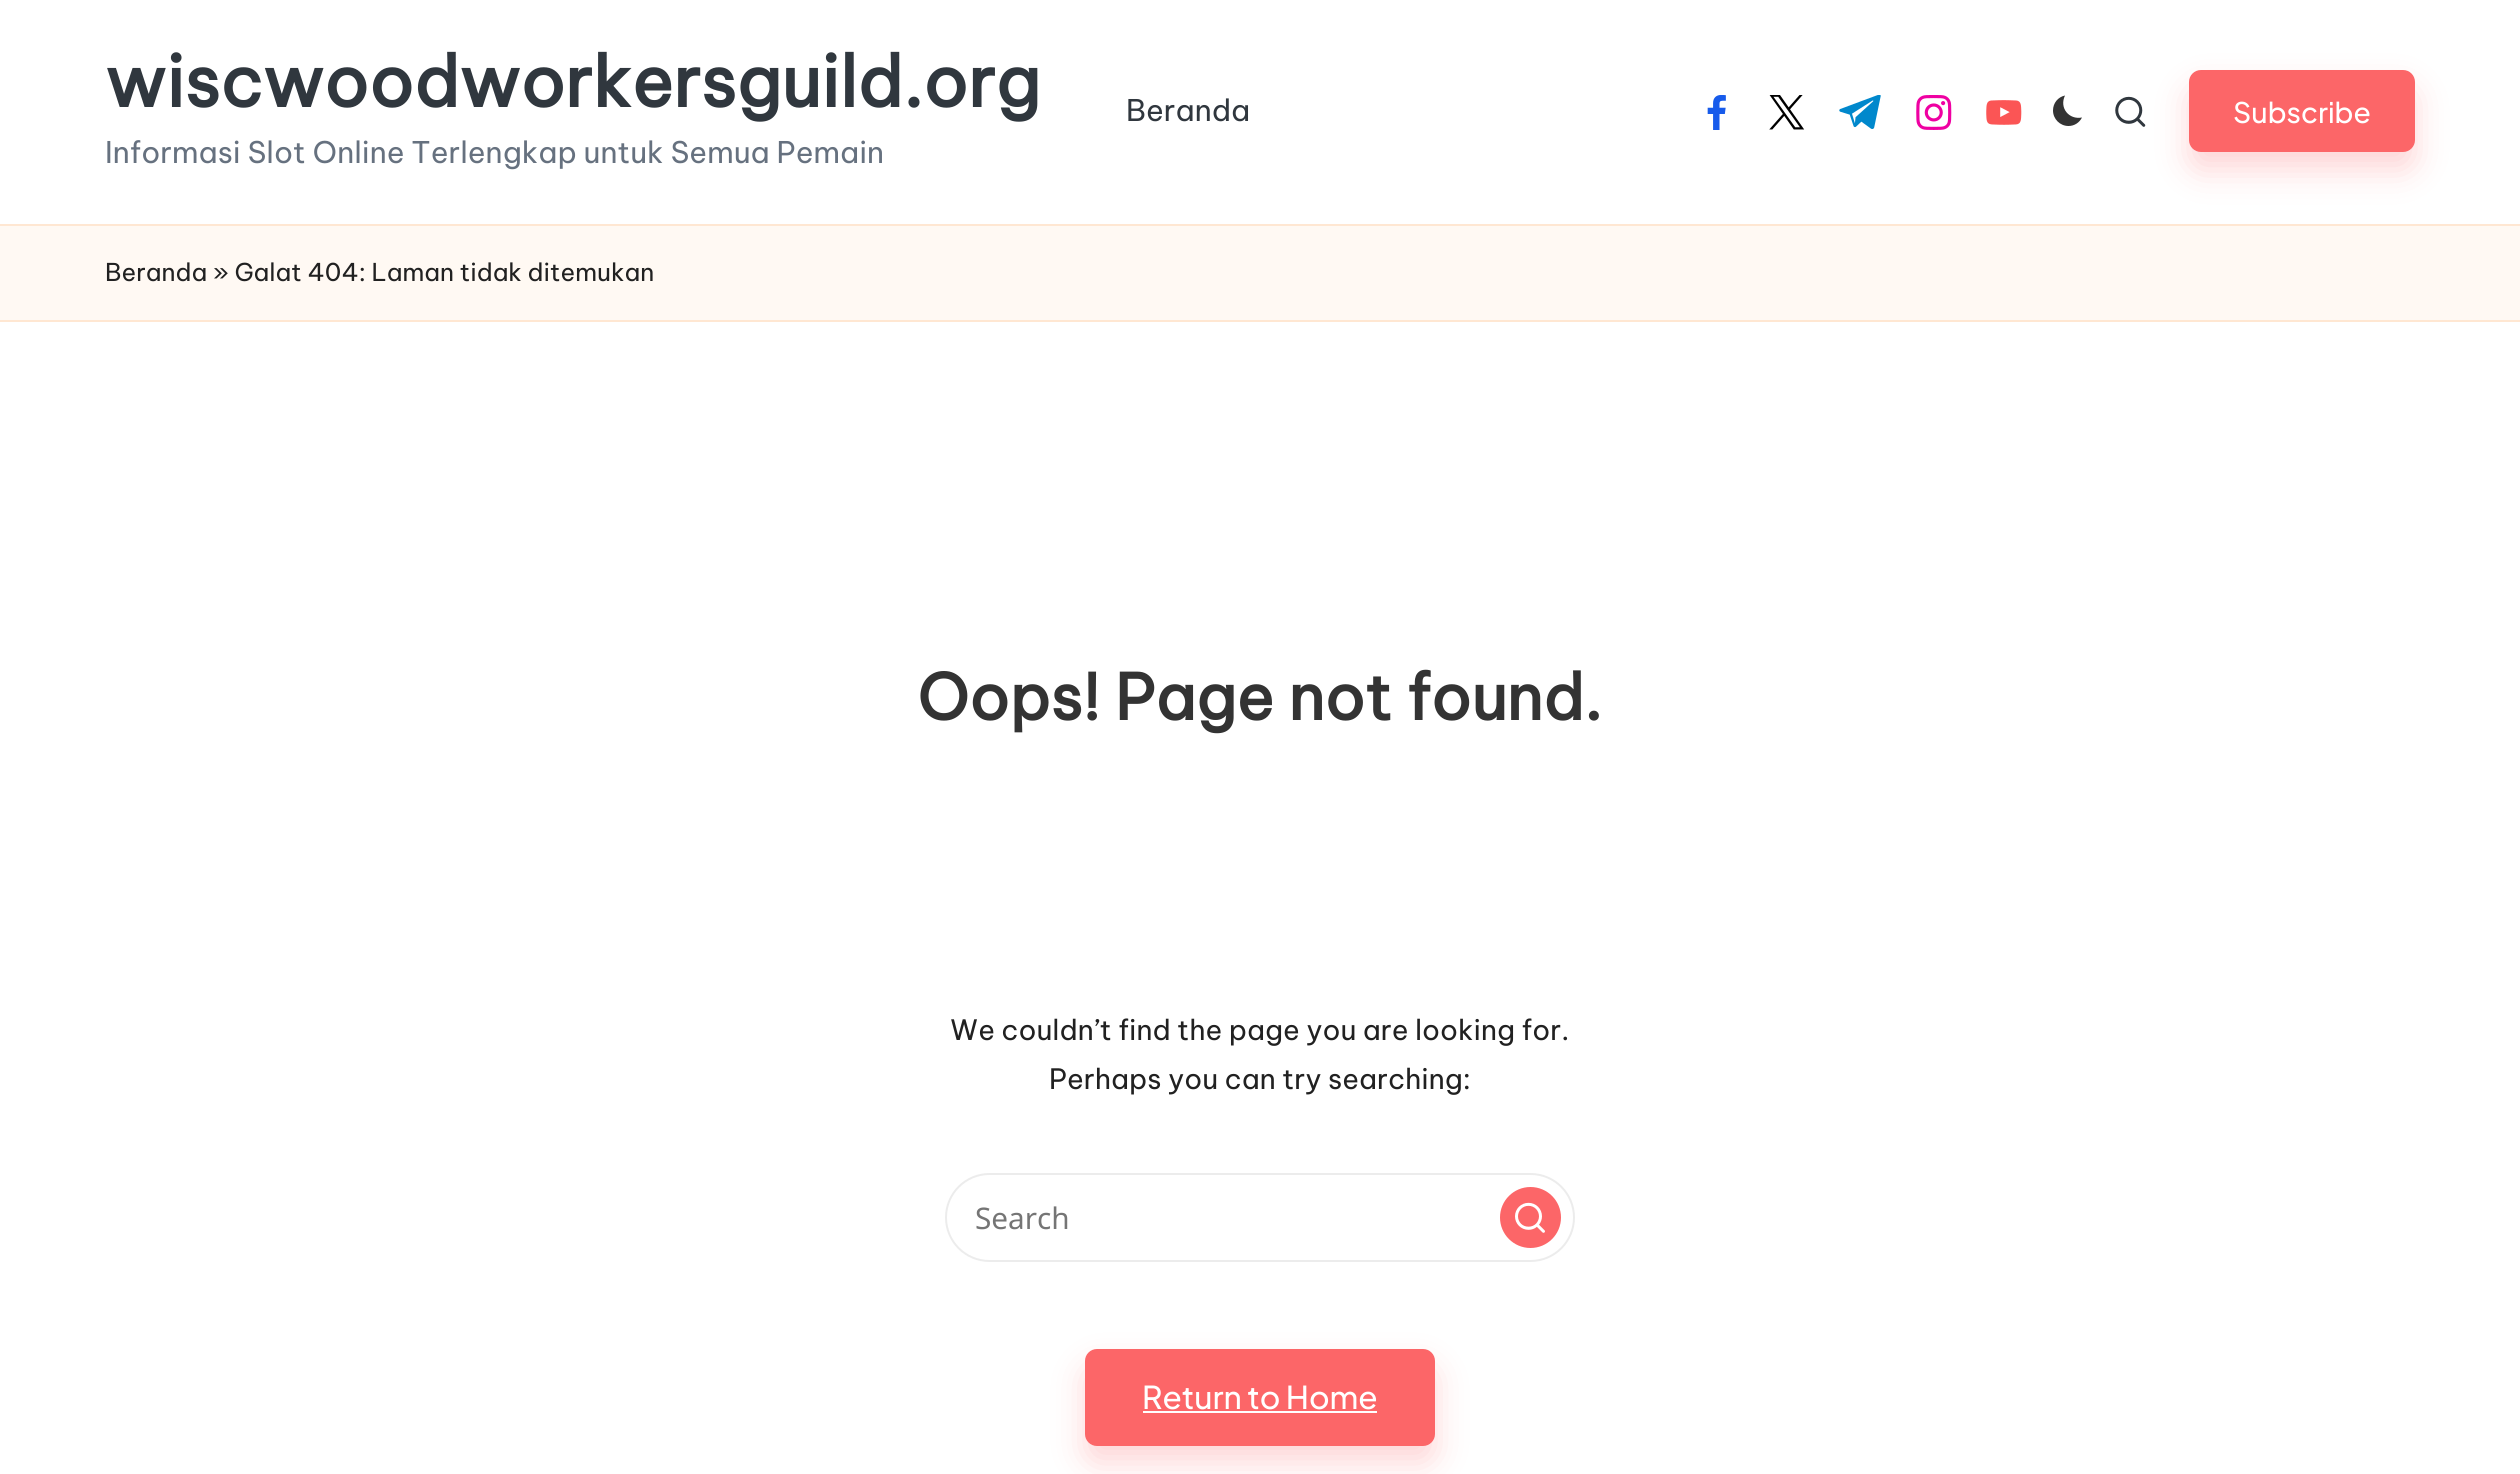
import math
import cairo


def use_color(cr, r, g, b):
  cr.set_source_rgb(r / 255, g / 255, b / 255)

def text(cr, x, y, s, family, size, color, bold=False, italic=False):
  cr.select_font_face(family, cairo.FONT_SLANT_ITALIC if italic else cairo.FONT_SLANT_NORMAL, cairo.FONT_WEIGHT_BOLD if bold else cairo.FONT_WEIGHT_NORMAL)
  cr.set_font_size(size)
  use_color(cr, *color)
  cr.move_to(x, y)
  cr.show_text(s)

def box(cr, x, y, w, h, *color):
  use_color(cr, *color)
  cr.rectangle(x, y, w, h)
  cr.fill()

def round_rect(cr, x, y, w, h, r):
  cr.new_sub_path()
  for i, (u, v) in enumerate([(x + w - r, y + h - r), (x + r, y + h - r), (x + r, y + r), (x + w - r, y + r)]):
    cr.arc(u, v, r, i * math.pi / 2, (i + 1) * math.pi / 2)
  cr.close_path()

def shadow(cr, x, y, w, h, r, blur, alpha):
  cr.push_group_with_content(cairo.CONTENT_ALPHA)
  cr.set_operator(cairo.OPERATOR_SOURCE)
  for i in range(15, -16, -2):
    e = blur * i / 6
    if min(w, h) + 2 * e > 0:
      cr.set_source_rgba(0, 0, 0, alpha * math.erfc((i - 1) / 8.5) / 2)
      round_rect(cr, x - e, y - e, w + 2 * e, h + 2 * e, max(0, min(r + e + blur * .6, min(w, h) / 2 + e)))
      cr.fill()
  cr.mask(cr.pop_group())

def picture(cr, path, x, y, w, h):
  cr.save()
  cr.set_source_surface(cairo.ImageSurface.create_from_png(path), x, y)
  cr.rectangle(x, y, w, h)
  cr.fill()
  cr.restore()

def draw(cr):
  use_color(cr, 255, 255, 255)
  cr.paint()
  picture(cr, "img_01.png", 1707, 95, 19, 35)
  picture(cr, "img_02.png", 1769, 95, 36, 35)
  picture(cr, "img_03.png", 1839, 95, 42, 34)
  picture(cr, "img_04.png", 1916, 95, 36, 35)
  picture(cr, "img_05.png", 1986, 100, 36, 25)
  use_color(cr, 51, 51, 51)
  cr.new_path()
  cr.move_to(2082, 117.5)
  cr.curve_to(2069, 120, 2059, 108, 2065, 95.5)
  cr.curve_to(2058, 97, 2053, 103, 2053, 110.5)
  cr.curve_to(2053, 119, 2060, 126, 2068.5, 126)
  cr.curve_to(2074.5, 126, 2079.5, 122.5, 2082, 117.5)
  cr.close_path()
  cr.fill()
  picture(cr, "img_06.png", 2115, 96, 31, 31)
  use_color(cr, 252, 102, 104)
  shadow(cr, 2189, 88, 226, 82, 12, 16, 0.27)
  use_color(cr, 252, 102, 104)
  round_rect(cr, 2190, 71, 224, 80, 11)
  cr.fill_preserve()
  cr.stroke()
  box(cr, 0, 226, 2520, 94, 255, 249, 243)
  box(cr, 0, 224, 2520, 2, 255, 231, 210)
  box(cr, 0, 320, 2520, 2, 255, 231, 210)
  round_rect(cr, 946, 1174, 628, 87, 43.5)
  cr.set_source_rgba(0.745, 0.745, 0.745, 0.3)
  cr.stroke()
  use_color(cr, 252, 102, 104)
  cr.arc(1530.5, 1217.5, 30.5, 0, 2 * math.pi)
  cr.fill()
  picture(cr, "img_07.png", 1515, 1202, 30, 31)
  use_color(cr, 252, 102, 104)
  shadow(cr, 1085, 1367, 350, 96, 12, 16, 0.27)
  use_color(cr, 252, 102, 104)
  round_rect(cr, 1086, 1350, 348, 95, 11)
  cr.fill_preserve()
  cr.stroke()
  box(cr, 1143, 1411, 234, 2, 255, 255, 255)
  text(cr, 105, 107, "wiscwoodworkersguild.org", "Be Vietnam Pro", 70, (48, 55, 62), bold=True)
  text(cr, 105, 163, "Informasi Slot Online Terlengkap untuk Semua Pemain", "Be Vietnam Pro", 29.75, (102, 113, 127))
  text(cr, 1126, 121, "Beranda", "Be Vietnam Pro", 29.75, (48, 55, 62))
  text(cr, 2233, 123, "Subscribe", "Plus Jakarta Sans Medium", 28.25, (255, 255, 255))
  text(cr, 105, 281, "Beranda", "Be Vietnam Pro", 24.5, (33, 33, 33))
  text(cr, 213, 281, "» Galat 404: Laman tidak ditemukan", "Be Vietnam Pro", 24.5, (33, 33, 33))
  text(cr, 917, 720, "Oops! Page not found.", "Be Vietnam Pro", 63, (51, 51, 51), bold=True)
  text(cr, 950, 1040, "We couldn’t find the page you are looking for.", "Be Vietnam Pro", 28, (33, 33, 33))
  text(cr, 1049, 1089, "Perhaps you can try searching:", "Be Vietnam Pro", 28, (33, 33, 33))
  text(cr, 975, 1229, "Search", "Noto Sans", 29.75, (117, 117, 117))
  text(cr, 1142, 1409, "Return to Home", "Plus Jakarta Sans Medium", 31.5, (255, 255, 255))


surface = cairo.ImageSurface(cairo.FORMAT_RGB24, 2520, 1474)
cr = cairo.Context(surface)
options = cairo.FontOptions()
options.set_hint_metrics(cairo.HINT_METRICS_OFF)
options.set_hint_style(cairo.HINT_STYLE_NONE)
cr.set_font_options(options)
cr.set_miter_limit(4)
draw(cr)
surface.write_to_png("out.png")
